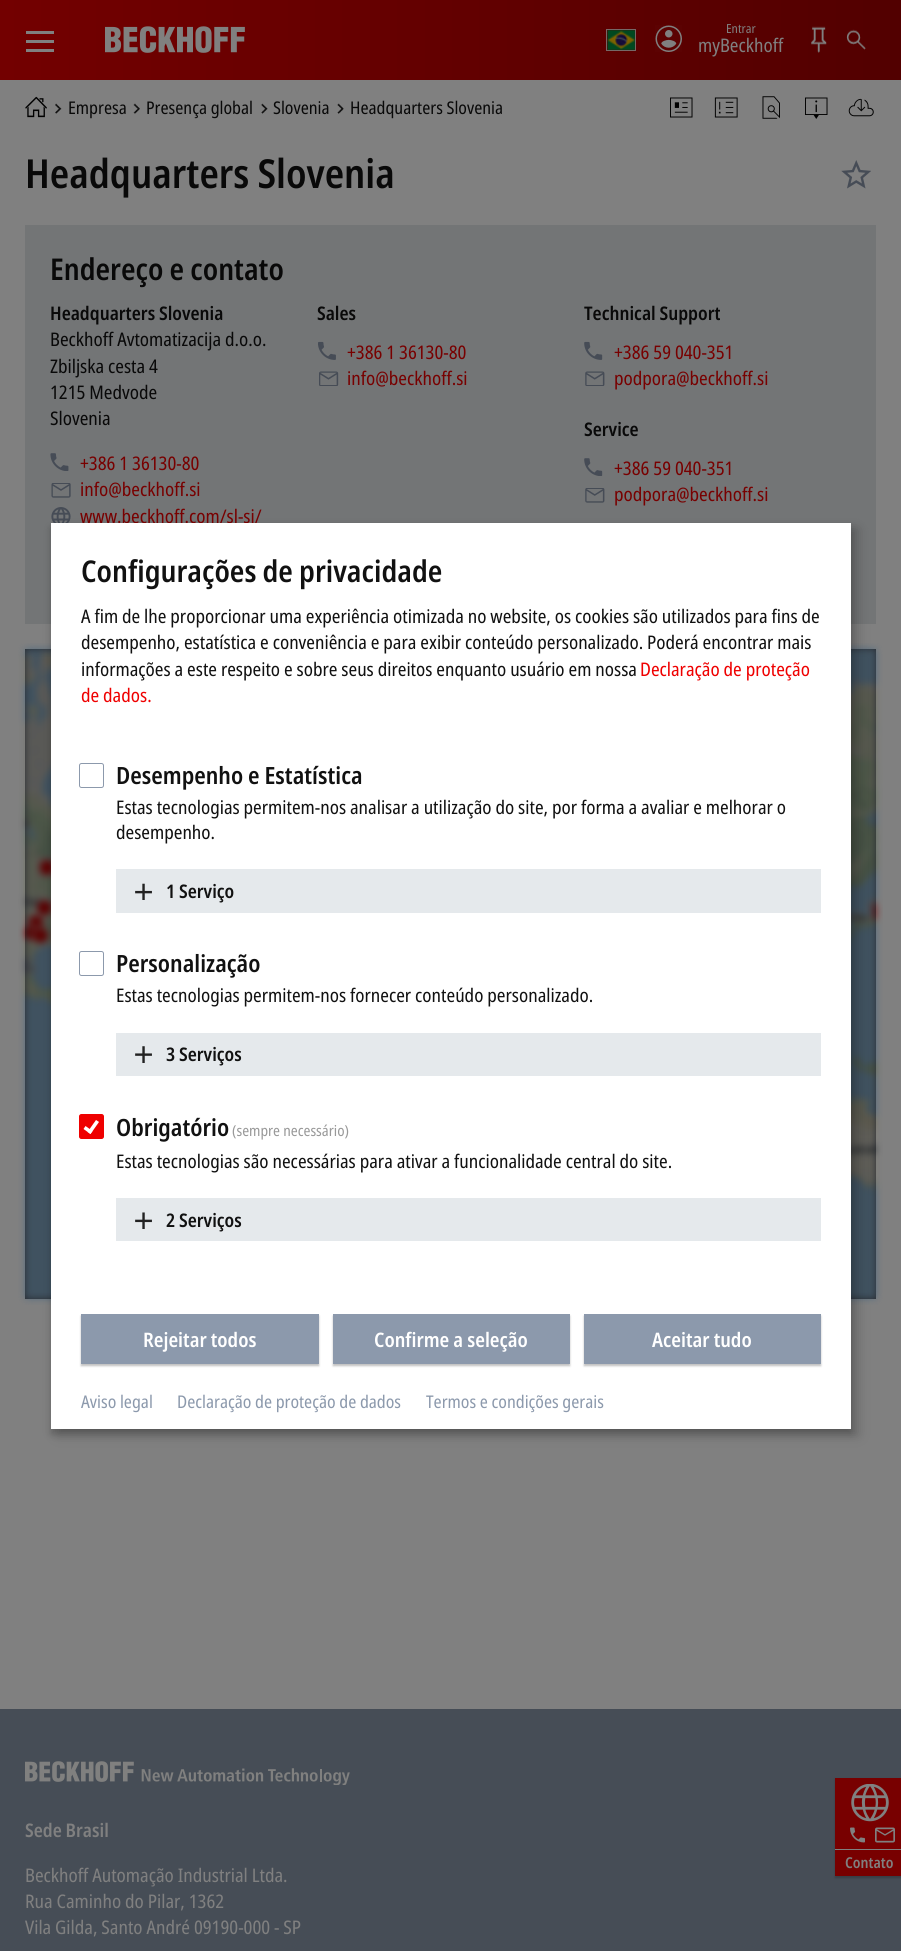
import math
import cairo


def use_color(cr, r, g, b):
  cr.set_source_rgb(r / 255, g / 255, b / 255)

def text(cr, x, y, s, family, size, color, bold=False, italic=False):
  cr.select_font_face(family, cairo.FONT_SLANT_ITALIC if italic else cairo.FONT_SLANT_NORMAL, cairo.FONT_WEIGHT_BOLD if bold else cairo.FONT_WEIGHT_NORMAL)
  cr.set_font_size(size)
  use_color(cr, *color)
  cr.move_to(x, y)
  cr.show_text(s)

def box(cr, x, y, w, h, *color):
  use_color(cr, *color)
  cr.rectangle(x, y, w, h)
  cr.fill()

def round_rect(cr, x, y, w, h, r):
  cr.new_sub_path()
  for i, (u, v) in enumerate([(x + w - r, y + h - r), (x + r, y + h - r), (x + r, y + r), (x + w - r, y + r)]):
    cr.arc(u, v, r, i * math.pi / 2, (i + 1) * math.pi / 2)
  cr.close_path()

def shadow(cr, x, y, w, h, r, blur, alpha):
  cr.push_group_with_content(cairo.CONTENT_ALPHA)
  cr.set_operator(cairo.OPERATOR_SOURCE)
  for i in range(15, -16, -2):
    e = blur * i / 6
    if min(w, h) + 2 * e > 0:
      cr.set_source_rgba(0, 0, 0, alpha * math.erfc((i - 1) / 8.5) / 2)
      round_rect(cr, x - e, y - e, w + 2 * e, h + 2 * e, max(0, min(r + e + blur * .6, min(w, h) / 2 + e)))
      cr.fill()
  cr.mask(cr.pop_group())

def picture(cr, path, x, y, w, h):
  cr.save()
  cr.set_source_surface(cairo.ImageSurface.create_from_png(path), x, y)
  cr.rectangle(x, y, w, h)
  cr.fill()
  cr.restore()

def draw(cr):
  use_color(cr, 128, 128, 128)
  cr.paint()
  gradient = cairo.LinearGradient(0, 40, 901, 40)
  gradient.add_color_stop_rgba(0, 0.451, 0, 0, 1)
  gradient.add_color_stop_rgba(1, 0.322, 0, 0, 1)
  cr.set_source(gradient)
  cr.rectangle(0, 0, 901, 80)
  cr.fill()
  box(cr, 26, 31, 28, 3, 128, 128, 128)
  box(cr, 26, 40, 28, 3, 128, 128, 128)
  box(cr, 26, 49, 28, 3, 128, 128, 128)
  picture(cr, "img_01.png", 105, 26, 140, 27)
  picture(cr, "img_02.png", 607, 29, 29, 22)
  cr.rectangle(606.5, 29.5, 29, 21)
  cr.set_source_rgba(0.502, 0.502, 0.502, 0.8)
  cr.set_line_width(1)
  cr.stroke()
  picture(cr, "img_03.png", 655, 25, 27, 27)
  picture(cr, "img_04.png", 811, 26, 16, 27)
  picture(cr, "img_05.png", 846, 29, 20, 21)
  picture(cr, "img_06.png", 25, 96, 22, 22)
  picture(cr, "img_07.png", 55, 103, 7, 11)
  picture(cr, "img_08.png", 133, 103, 7, 11)
  picture(cr, "img_09.png", 261, 103, 7, 11)
  picture(cr, "img_10.png", 337, 103, 7, 11)
  picture(cr, "img_11.png", 670, 97, 23, 21)
  picture(cr, "img_12.png", 714, 97, 24, 21)
  picture(cr, "img_13.png", 762, 96, 18, 23)
  picture(cr, "img_14.png", 805, 97, 23, 22)
  picture(cr, "img_15.png", 815, 100, 3, 13)
  picture(cr, "img_16.png", 848, 98, 26, 19)
  picture(cr, "img_17.png", 841, 160, 30, 29)
  box(cr, 25, 225, 851, 399, 115, 117, 118)
  picture(cr, "img_18.png", 50, 453, 19, 18)
  picture(cr, "img_19.png", 51, 483, 20, 15)
  picture(cr, "img_20.png", 51, 507, 20, 16)
  picture(cr, "img_21.png", 318, 341, 18, 19)
  picture(cr, "img_22.png", 319, 371, 20, 15)
  picture(cr, "img_23.png", 584, 341, 19, 19)
  picture(cr, "img_24.png", 585, 371, 20, 15)
  picture(cr, "img_25.png", 584, 458, 19, 18)
  picture(cr, "img_26.png", 585, 488, 20, 15)
  box(cr, 25, 649, 851, 650, 40, 43, 49)
  picture(cr, "img_27.png", 18, 643, 865, 662)
  box(cr, 0, 1709, 901, 242, 70, 77, 86)
  picture(cr, "img_28.png", 25, 1761, 325, 24)
  use_color(cr, 0, 0, 0)
  shadow(cr, 835, 1779, 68, 99, 0, 1, 0.2)
  box(cr, 835, 1778, 66, 98, 120, 0, 0)
  picture(cr, "img_29.png", 850, 1784, 45, 59)
  box(cr, 835, 1849, 66, 1, 128, 128, 128)
  use_color(cr, 0, 0, 0)
  shadow(cr, 58, 529, 800, 906, 0, 6, 0.19)
  shadow(cr, 51, 528, 800, 906, 0, 4, 0.2)
  text(cr, 726, 33, "Entrar", "Noto Sans", 12.5, (128, 128, 128))
  text(cr, 698, 52, "myBeckhoff", "Noto Sans", 18.75, (128, 128, 128))
  text(cr, 68, 114, "Empresa", "Noto Sans", 17.5, (9, 9, 9))
  text(cr, 146, 114, "Presença global", "Noto Sans", 17.5, (9, 9, 9))
  text(cr, 273, 114, "Slovenia", "Noto Sans", 17.5, (9, 9, 9))
  text(cr, 350, 114, "Headquarters Slovenia", "Noto Sans", 17.5, (9, 9, 9))
  text(cr, 25, 188, "Headquarters Slovenia", "Noto Sans SemiBold", 40, (9, 9, 9))
  text(cr, 50, 280, "Endereço e contato", "Noto Sans SemiBold", 30, (9, 9, 9))
  text(cr, 50, 320, "Headquarters Slovenia", "Noto Sans SemiBold", 18.75, (9, 9, 9))
  text(cr, 50, 346, "Beckhoff Avtomatizacija d.o.o.", "Noto Sans", 18.75, (9, 9, 9))
  text(cr, 50, 373, "Zbiljska cesta 4", "Noto Sans", 18.75, (9, 9, 9))
  text(cr, 50, 399, "1215 Medvode", "Noto Sans", 18.75, (9, 9, 9))
  text(cr, 50, 425, "Slovenia", "Noto Sans", 18.75, (9, 9, 9))
  text(cr, 80, 470, "+386 1 36130-80", "Noto Sans", 18.75, (120, 0, 0))
  text(cr, 80, 496, "info@beckhoff.si", "Noto Sans", 18.75, (120, 0, 0))
  text(cr, 80, 523, "www.beckhoff.com/sl-si/", "Noto Sans", 18.75, (120, 0, 0))
  text(cr, 317, 320, "Sales", "Noto Sans SemiBold", 18.75, (9, 9, 9))
  text(cr, 347, 359, "+386 1 36130-80", "Noto Sans", 18.75, (120, 0, 0))
  text(cr, 347, 385, "info@beckhoff.si", "Noto Sans", 18.75, (120, 0, 0))
  text(cr, 584, 320, "Technical Support", "Noto Sans SemiBold", 18.75, (9, 9, 9))
  text(cr, 614, 359, "+386 59 040-351", "Noto Sans", 18.75, (120, 0, 0))
  text(cr, 614, 385, "podpora@beckhoff.si", "Noto Sans", 18.75, (120, 0, 0))
  text(cr, 584, 436, "Service", "Noto Sans SemiBold", 18.75, (9, 9, 9))
  text(cr, 614, 475, "+386 59 040-351", "Noto Sans", 18.75, (120, 0, 0))
  text(cr, 614, 501, "podpora@beckhoff.si", "Noto Sans", 18.75, (120, 0, 0))
  text(cr, 25, 1837, "Sede Brasil", "Noto Sans SemiBold", 18.75, (128, 128, 128))
  text(cr, 25, 1882, "Beckhoff Automação Industrial Ltda.", "Noto Sans", 18.75, (128, 128, 128))
  text(cr, 25, 1908, "Rua Caminho do Pilar, 1362", "Noto Sans", 18.75, (128, 128, 128))
  text(cr, 25, 1934, "Vila Gilda, Santo André 09190-000 - SP", "Noto Sans", 18.75, (128, 128, 128))
  text(cr, 845, 1868, "Contato", "Noto Sans SemiBold", 15, (128, 128, 128))
  box(cr, 51, 523, 800, 906, 255, 255, 255)
  text(cr, 81, 582, "Configurações de privacidade", "Noto Sans SemiBold", 30, (17, 17, 17))
  text(cr, 81, 623, "A fim de lhe proporcionar uma experiência otimizada no website, os cookies são utilizados para fins de", "Noto Sans", 18.75, (17, 17, 17))
  text(cr, 81, 649, "desempenho, estatística e conveniência e para exibir conteúdo personalizado. Poderá encontrar mais", "Noto Sans", 18.75, (17, 17, 17))
  text(cr, 81, 676, "informações a este respeito e sobre seus direitos enquanto usuário em nossa", "Noto Sans", 18.75, (17, 17, 17))
  text(cr, 640, 676, "Declaração de proteção", "Noto Sans", 18.75, (239, 0, 0))
  text(cr, 81, 702, "de dados.", "Noto Sans", 18.75, (239, 0, 0))
  round_rect(cr, 79.5, 763.5, 24, 24, 2)
  use_color(cr, 140, 153, 172)
  cr.stroke()
  text(cr, 116, 784, "Desempenho e Estatística", "Noto Sans SemiBold", 23.75, (17, 17, 17))
  text(cr, 116, 814, "Estas tecnologias permitem-nos analisar a utilização do site, por forma a avaliar e melhorar o", "Noto Sans", 18.75, (17, 17, 17))
  text(cr, 116, 839, "desempenho.", "Noto Sans", 18.75, (17, 17, 17))
  box(cr, 116, 869, 705, 44, 229, 233, 236)
  picture(cr, "img_30.png", 135, 883, 17, 17)
  text(cr, 166, 898, "1 Serviço", "Noto Sans SemiBold", 18.75, (17, 17, 17))
  round_rect(cr, 79.5, 951.5, 24, 24, 2)
  use_color(cr, 140, 153, 172)
  cr.stroke()
  text(cr, 116, 972, "Personalização", "Noto Sans SemiBold", 23.75, (17, 17, 17))
  text(cr, 116, 1002, "Estas tecnologias permitem-nos fornecer conteúdo personalizado.", "Noto Sans", 18.75, (17, 17, 17))
  box(cr, 116, 1033, 705, 43, 229, 233, 236)
  picture(cr, "img_31.png", 135, 1046, 17, 17)
  text(cr, 166, 1061, "3 Serviços", "Noto Sans SemiBold", 18.75, (17, 17, 17))
  use_color(cr, 239, 0, 0)
  round_rect(cr, 79.5, 1114.5, 24, 24, 2)
  cr.fill_preserve()
  cr.stroke()
  text(cr, 116, 1136, "Obrigatório", "Noto Sans SemiBold", 23.75, (17, 17, 17))
  use_color(cr, 255, 255, 255)
  cr.new_path()
  cr.move_to(96, 1120)
  cr.line_to(99, 1122)
  cr.line_to(90.5, 1134)
  cr.line_to(87.5, 1132)
  cr.close_path()
  cr.fill()
  cr.new_path()
  cr.move_to(85.5, 1126)
  cr.line_to(92.5, 1131)
  cr.line_to(90.5, 1134)
  cr.line_to(83.5, 1129)
  cr.close_path()
  cr.fill()
  text(cr, 232, 1136, "(sempre necessário)", "Noto Sans", 15, (153, 153, 153))
  text(cr, 116, 1168, "Estas tecnologias são necessárias para ativar a funcionalidade central do site.", "Noto Sans", 18.75, (17, 17, 17))
  box(cr, 116, 1198, 705, 43, 229, 233, 236)
  picture(cr, "img_32.png", 135, 1212, 17, 17)
  text(cr, 166, 1227, "2 Serviços", "Noto Sans SemiBold", 18.75, (17, 17, 17))
  use_color(cr, 0, 0, 0)
  shadow(cr, 81, 1316, 238, 50, 0, 1, 0.25)
  box(cr, 81, 1314, 238, 50, 140, 153, 172)
  text(cr, 143, 1347, "Rejeitar todos", "Noto Sans SemiBold", 20, (255, 255, 255))
  use_color(cr, 0, 0, 0)
  shadow(cr, 333, 1316, 237, 50, 0, 1, 0.25)
  box(cr, 333, 1314, 237, 50, 140, 153, 172)
  text(cr, 374, 1347, "Confirme a seleção", "Noto Sans SemiBold", 20, (255, 255, 255))
  use_color(cr, 0, 0, 0)
  shadow(cr, 584, 1316, 237, 50, 0, 1, 0.25)
  box(cr, 584, 1314, 237, 50, 140, 153, 172)
  text(cr, 652, 1347, "Aceitar tudo", "Noto Sans SemiBold", 20, (255, 255, 255))
  text(cr, 81, 1408, "Aviso legal", "Noto Sans", 17.5, (140, 153, 172))
  text(cr, 177, 1408, "Declaração de proteção de dados", "Noto Sans", 17.5, (140, 153, 172))
  text(cr, 426, 1408, "Termos e condições gerais", "Noto Sans", 17.5, (140, 153, 172))


surface = cairo.ImageSurface(cairo.FORMAT_RGB24, 901, 1951)
cr = cairo.Context(surface)
options = cairo.FontOptions()
options.set_hint_metrics(cairo.HINT_METRICS_OFF)
options.set_hint_style(cairo.HINT_STYLE_NONE)
cr.set_font_options(options)
cr.set_miter_limit(4)
draw(cr)
surface.write_to_png("out.png")
